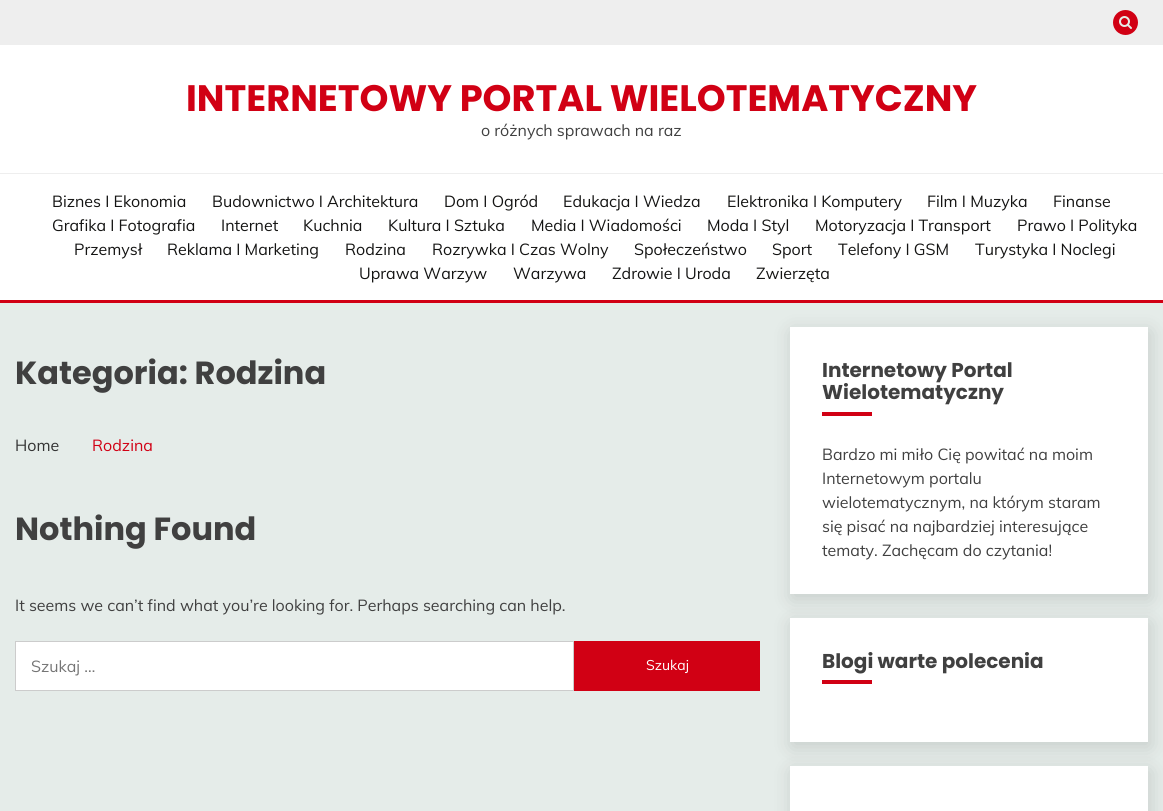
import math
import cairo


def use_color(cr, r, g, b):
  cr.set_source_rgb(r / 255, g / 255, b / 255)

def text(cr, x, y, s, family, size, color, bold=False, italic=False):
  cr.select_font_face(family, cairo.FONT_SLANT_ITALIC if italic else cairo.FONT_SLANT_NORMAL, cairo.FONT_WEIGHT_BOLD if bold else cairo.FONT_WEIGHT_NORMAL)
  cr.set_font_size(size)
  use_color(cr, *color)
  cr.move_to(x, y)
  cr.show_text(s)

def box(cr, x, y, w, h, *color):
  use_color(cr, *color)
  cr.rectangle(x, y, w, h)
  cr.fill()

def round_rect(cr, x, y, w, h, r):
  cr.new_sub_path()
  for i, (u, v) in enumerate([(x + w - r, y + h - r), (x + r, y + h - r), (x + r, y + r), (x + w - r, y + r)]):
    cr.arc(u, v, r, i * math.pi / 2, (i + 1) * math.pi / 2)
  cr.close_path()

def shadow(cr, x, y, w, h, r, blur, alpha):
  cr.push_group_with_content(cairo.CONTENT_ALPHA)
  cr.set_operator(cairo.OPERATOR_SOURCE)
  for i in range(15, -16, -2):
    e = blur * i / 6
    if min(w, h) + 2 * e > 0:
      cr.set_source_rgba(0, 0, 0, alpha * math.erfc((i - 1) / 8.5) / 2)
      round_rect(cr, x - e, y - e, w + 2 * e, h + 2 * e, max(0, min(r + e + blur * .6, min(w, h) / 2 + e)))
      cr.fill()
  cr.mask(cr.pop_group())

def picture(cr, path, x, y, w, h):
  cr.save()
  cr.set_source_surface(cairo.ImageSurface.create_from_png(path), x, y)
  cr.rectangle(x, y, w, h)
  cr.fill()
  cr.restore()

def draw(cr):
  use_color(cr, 229, 236, 233)
  cr.paint()
  box(cr, 0, 45, 1163, 255, 255, 255, 255)
  box(cr, 0, 0, 1163, 45, 238, 238, 238)
  use_color(cr, 209, 0, 20)
  cr.arc(1125.5, 22.5, 12.5, 0, 2 * math.pi)
  cr.fill()
  picture(cr, "img_01.png", 1119, 16, 13, 13)
  box(cr, 0, 173, 1163, 1, 238, 238, 238)
  use_color(cr, 0, 0, 0)
  shadow(cr, 792, 332, 358, 267, 0, 10, 0.14)
  box(cr, 0, 300, 1163, 3, 209, 0, 20)
  use_color(cr, 255, 255, 255)
  cr.rectangle(15.5, 641.5, 558, 49)
  cr.fill_preserve()
  use_color(cr, 204, 204, 204)
  cr.set_line_width(1)
  cr.stroke()
  box(cr, 574, 641, 186, 50, 209, 0, 20)
  box(cr, 790, 327, 358, 267, 255, 255, 255)
  box(cr, 822, 412, 50, 4, 209, 0, 20)
  use_color(cr, 0, 0, 0)
  shadow(cr, 792, 623, 358, 124, 0, 10, 0.14)
  box(cr, 790, 618, 358, 124, 255, 255, 255)
  box(cr, 822, 680, 50, 4, 209, 0, 20)
  use_color(cr, 0, 0, 0)
  shadow(cr, 792, 771, 358, 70, 0, 10, 0.14)
  box(cr, 790, 766, 358, 45, 255, 255, 255)
  text(cr, 186, 111, "INTERNETOWY PORTAL WIELOTEMATYCZNY", "Poppins", 36.8, (209, 0, 20), bold=True)
  text(cr, 481, 136, "o różnych sprawach na raz", "Muli", 16, (64, 64, 64))
  text(cr, 52, 207, "Biznes I Ekonomia", "Muli", 16, (20, 20, 19))
  text(cr, 212, 207, "Budownictwo I Architektura", "Muli", 16, (20, 20, 19))
  text(cr, 444, 207, "Dom I Ogród", "Muli", 16, (20, 20, 19))
  text(cr, 563, 207, "Edukacja I Wiedza", "Muli", 16, (20, 20, 19))
  text(cr, 727, 207, "Elektronika I Komputery", "Muli", 16, (20, 20, 19))
  text(cr, 927, 207, "Film I Muzyka", "Muli", 16, (20, 20, 19))
  text(cr, 1053, 207, "Finanse", "Muli", 16, (20, 20, 19))
  text(cr, 52, 231, "Grafika I Fotografia", "Muli", 16, (20, 20, 19))
  text(cr, 221, 231, "Internet", "Muli", 16, (20, 20, 19))
  text(cr, 303, 231, "Kuchnia", "Muli", 16, (20, 20, 19))
  text(cr, 388, 231, "Kultura I Sztuka", "Muli", 16, (20, 20, 19))
  text(cr, 531, 231, "Media I Wiadomości", "Muli", 16, (20, 20, 19))
  text(cr, 707, 231, "Moda I Styl", "Muli", 16, (20, 20, 19))
  text(cr, 815, 231, "Motoryzacja I Transport", "Muli", 16, (20, 20, 19))
  text(cr, 1017, 231, "Prawo I Polityka", "Muli", 16, (20, 20, 19))
  text(cr, 74, 255, "Przemysł", "Muli", 16, (20, 20, 19))
  text(cr, 167, 255, "Reklama I Marketing", "Muli", 16, (20, 20, 19))
  text(cr, 345, 255, "Rodzina", "Muli", 16, (20, 20, 19))
  text(cr, 432, 255, "Rozrywka I Czas Wolny", "Muli", 16, (20, 20, 19))
  text(cr, 634, 255, "Społeczeństwo", "Muli", 16, (20, 20, 19))
  text(cr, 772, 255, "Sport", "Muli", 16, (20, 20, 19))
  text(cr, 838, 255, "Telefony I GSM", "Muli", 16, (20, 20, 19))
  text(cr, 975, 255, "Turystyka I Noclegi", "Muli", 16, (20, 20, 19))
  text(cr, 359, 279, "Uprawa Warzyw", "Muli", 16, (20, 20, 19))
  text(cr, 513, 279, "Warzywa", "Muli", 16, (20, 20, 19))
  text(cr, 612, 279, "Zdrowie I Uroda", "Muli", 16, (20, 20, 19))
  text(cr, 756, 279, "Zwierzęta", "Muli", 16, (20, 20, 19))
  text(cr, 15, 384, "Kategoria: Rodzina", "Poppins", 32, (64, 64, 64), bold=True)
  text(cr, 15, 451, "Home", "Muli", 16, (51, 51, 51))
  text(cr, 92, 451, "Rodzina", "Muli", 16, (209, 0, 20))
  text(cr, 15, 540, "Nothing Found", "Poppins", 32, (64, 64, 64), bold=True)
  text(cr, 15, 611, "It seems we can’t find what you’re looking for. Perhaps searching can help.", "Muli", 16, (64, 64, 64))
  text(cr, 31, 672, "Szukaj …", "Muli", 16, (117, 117, 117))
  text(cr, 646, 670, "Szukaj", "Muli", 14, (255, 255, 255))
  text(cr, 822, 377, "Internetowy Portal", "Poppins", 20, (64, 64, 64), bold=True)
  text(cr, 822, 399, "Wielotematyczny", "Poppins", 20, (64, 64, 64), bold=True)
  text(cr, 822, 460, "Bardzo mi miło Cię powitać na moim", "Muli", 16, (64, 64, 64))
  text(cr, 822, 484, "Internetowym portalu", "Muli", 16, (64, 64, 64))
  text(cr, 822, 508, "wielotematycznym, na którym staram", "Muli", 16, (64, 64, 64))
  text(cr, 822, 532, "się pisać na najbardziej interesujące", "Muli", 16, (64, 64, 64))
  text(cr, 822, 556, "tematy. Zachęcam do czytania!", "Muli", 16, (64, 64, 64))
  text(cr, 822, 668, "Blogi warte polecenia", "Poppins", 20, (64, 64, 64), bold=True)


surface = cairo.ImageSurface(cairo.FORMAT_RGB24, 1163, 811)
cr = cairo.Context(surface)
options = cairo.FontOptions()
options.set_hint_metrics(cairo.HINT_METRICS_OFF)
options.set_hint_style(cairo.HINT_STYLE_NONE)
cr.set_font_options(options)
cr.set_miter_limit(4)
draw(cr)
surface.write_to_png("out.png")
